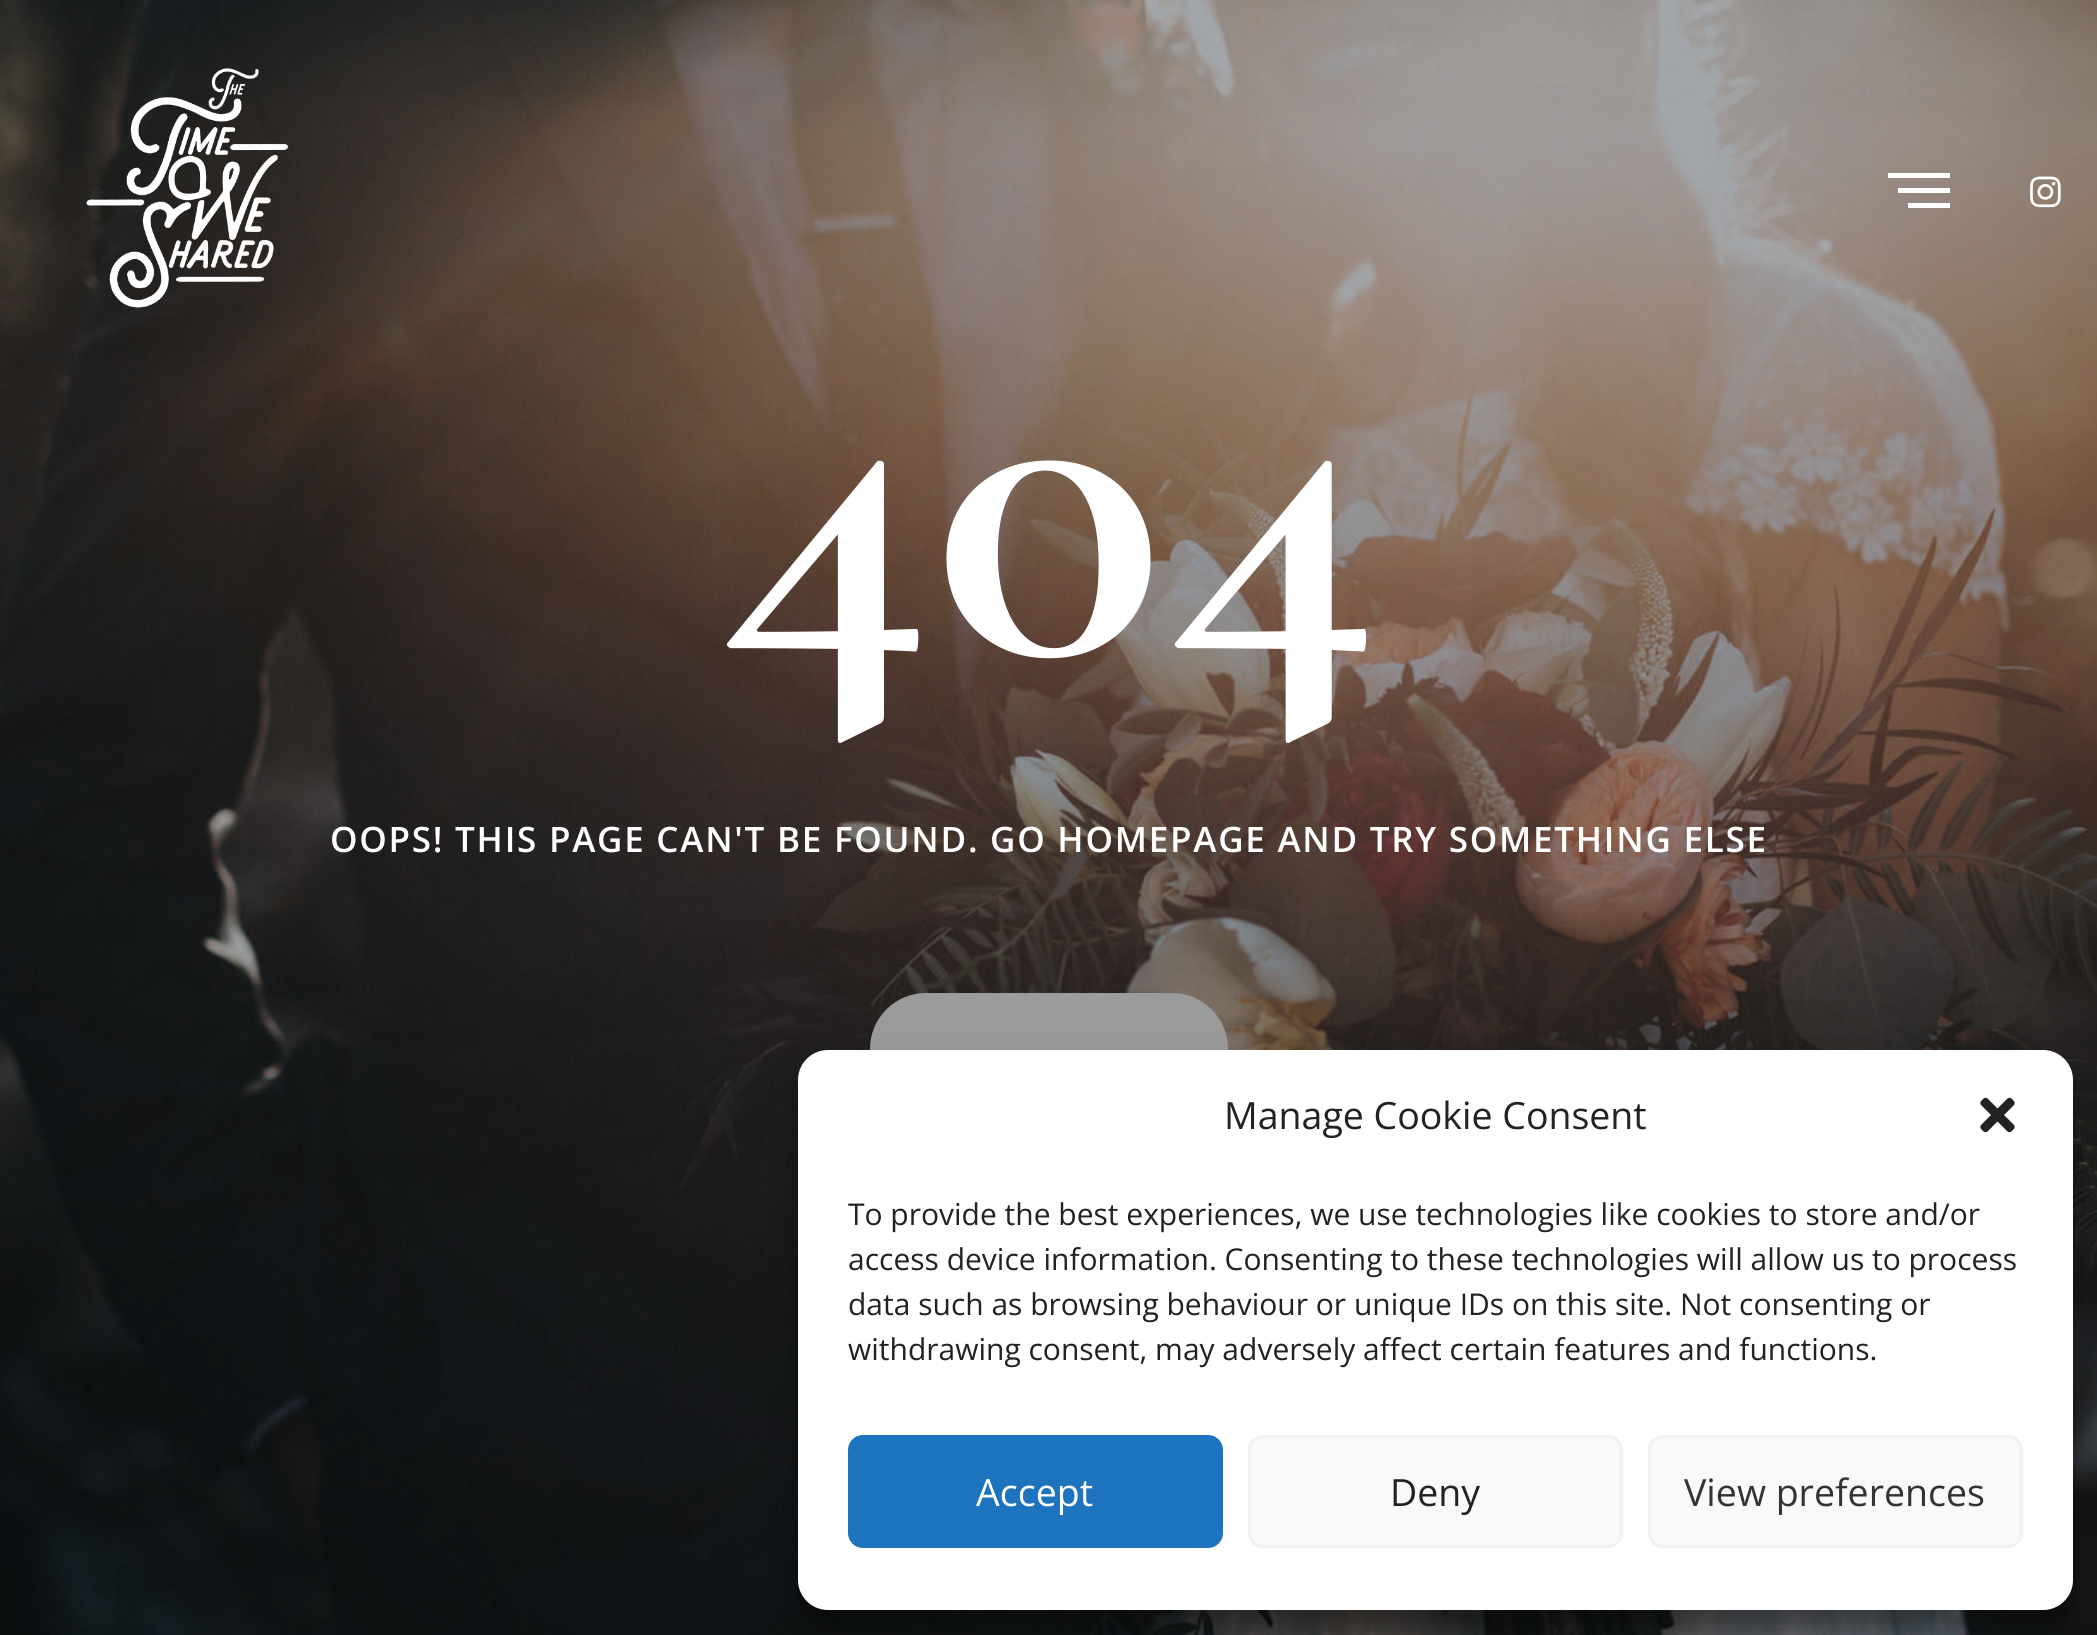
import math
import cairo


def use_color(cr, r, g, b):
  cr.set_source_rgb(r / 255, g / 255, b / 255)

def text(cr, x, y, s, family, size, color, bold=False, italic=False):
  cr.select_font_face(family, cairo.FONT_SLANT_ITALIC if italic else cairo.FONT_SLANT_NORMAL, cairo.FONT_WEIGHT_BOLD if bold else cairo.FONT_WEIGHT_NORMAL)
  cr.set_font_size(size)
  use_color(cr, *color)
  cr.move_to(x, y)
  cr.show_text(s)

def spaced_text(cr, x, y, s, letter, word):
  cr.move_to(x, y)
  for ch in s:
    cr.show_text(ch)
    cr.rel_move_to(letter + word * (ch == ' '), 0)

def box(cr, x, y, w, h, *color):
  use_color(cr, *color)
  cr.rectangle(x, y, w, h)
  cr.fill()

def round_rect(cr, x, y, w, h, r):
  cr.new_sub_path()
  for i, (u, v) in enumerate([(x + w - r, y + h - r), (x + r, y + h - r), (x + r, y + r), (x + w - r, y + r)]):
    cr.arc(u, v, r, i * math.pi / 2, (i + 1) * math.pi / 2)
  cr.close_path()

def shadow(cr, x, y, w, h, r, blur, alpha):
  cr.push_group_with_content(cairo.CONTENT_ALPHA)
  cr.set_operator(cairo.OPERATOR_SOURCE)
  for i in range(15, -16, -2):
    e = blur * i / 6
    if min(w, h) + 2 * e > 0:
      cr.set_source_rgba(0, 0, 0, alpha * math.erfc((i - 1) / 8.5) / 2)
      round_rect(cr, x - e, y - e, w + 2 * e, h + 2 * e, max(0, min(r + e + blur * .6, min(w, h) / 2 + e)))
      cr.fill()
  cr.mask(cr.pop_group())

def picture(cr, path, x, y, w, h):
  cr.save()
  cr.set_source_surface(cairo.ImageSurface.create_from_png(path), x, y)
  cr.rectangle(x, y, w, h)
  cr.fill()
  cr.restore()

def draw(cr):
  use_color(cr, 255, 255, 255)
  cr.paint()
  picture(cr, "img_03.png", 0, 0, 2097, 1635)
  picture(cr, "img_01.png", 86, 68, 203, 240)
  box(cr, 1888, 173, 62, 5, 255, 255, 255)
  box(cr, 1898, 188, 52, 5, 255, 255, 255)
  box(cr, 1908, 203, 42, 5, 255, 255, 255)
  picture(cr, "img_02.png", 2030, 176, 31, 32)
  use_color(cr, 155, 155, 155)
  round_rect(cr, 870, 993, 358, 112, 56)
  cr.fill()
  use_color(cr, 0, 0, 0)
  shadow(cr, 798, 1065, 1275, 560, 30, 7.5, 0.23)
  shadow(cr, 798, 1075, 1275, 560, 30, 25, 0.19)
  use_color(cr, 255, 255, 255)
  round_rect(cr, 798, 1050, 1275, 560, 30)
  cr.fill()
  picture(cr, "img_04.png", 1980, 1097, 35, 36)
  use_color(cr, 30, 115, 190)
  round_rect(cr, 849.5, 1436.5, 372, 110, 13.5)
  cr.fill_preserve()
  cr.set_line_width(3)
  cr.stroke()
  use_color(cr, 249, 249, 249)
  round_rect(cr, 1249.5, 1436.5, 372, 110, 13.5)
  cr.fill_preserve()
  use_color(cr, 242, 242, 242)
  cr.stroke()
  use_color(cr, 249, 249, 249)
  round_rect(cr, 1649.5, 1436.5, 372, 110, 13.5)
  cr.fill_preserve()
  use_color(cr, 242, 242, 242)
  cr.stroke()
  text(cr, 715, 652, "404", "Cormorant", 480, (255, 255, 255), bold=True)
  cr.select_font_face("Open Sans SemiBold")
  cr.set_font_size(35)
  spaced_text(cr, 330, 852, "OOPS! THIS PAGE CAN'T BE FOUND. GO HOMEPAGE AND TRY SOMETHING ELSE", 1.75, 0)
  text(cr, 1224, 1129, "Manage Cookie Consent", "Open Sans", 37.5, (34, 34, 34))
  cr.save()
  cr.rectangle(848, 1193, 1175, 192)
  cr.clip()
  text(cr, 848, 1225, "To provide the best experiences, we use technologies like cookies to store and/or", "Open Sans", 30, (34, 34, 34))
  cr.restore()
  text(cr, 848, 1270, "access device information. Consenting to these technologies will allow us to process", "Open Sans", 30, (34, 34, 34))
  text(cr, 848, 1315, "data such as browsing behaviour or unique IDs on this site. Not consenting or", "Open Sans", 30, (34, 34, 34))
  text(cr, 848, 1360, "withdrawing consent, may adversely affect certain features and functions.", "Open Sans", 30, (34, 34, 34))
  text(cr, 976, 1506, "Accept", "Open Sans", 37.5, (255, 255, 255))
  text(cr, 1390, 1506, "Deny", "Open Sans", 37.5, (34, 34, 34))
  text(cr, 1684, 1506, "View preferences", "Open Sans", 37.5, (51, 51, 51))


surface = cairo.ImageSurface(cairo.FORMAT_RGB24, 2097, 1635)
cr = cairo.Context(surface)
options = cairo.FontOptions()
options.set_hint_metrics(cairo.HINT_METRICS_OFF)
options.set_hint_style(cairo.HINT_STYLE_NONE)
cr.set_font_options(options)
cr.set_miter_limit(4)
draw(cr)
surface.write_to_png("out.png")
